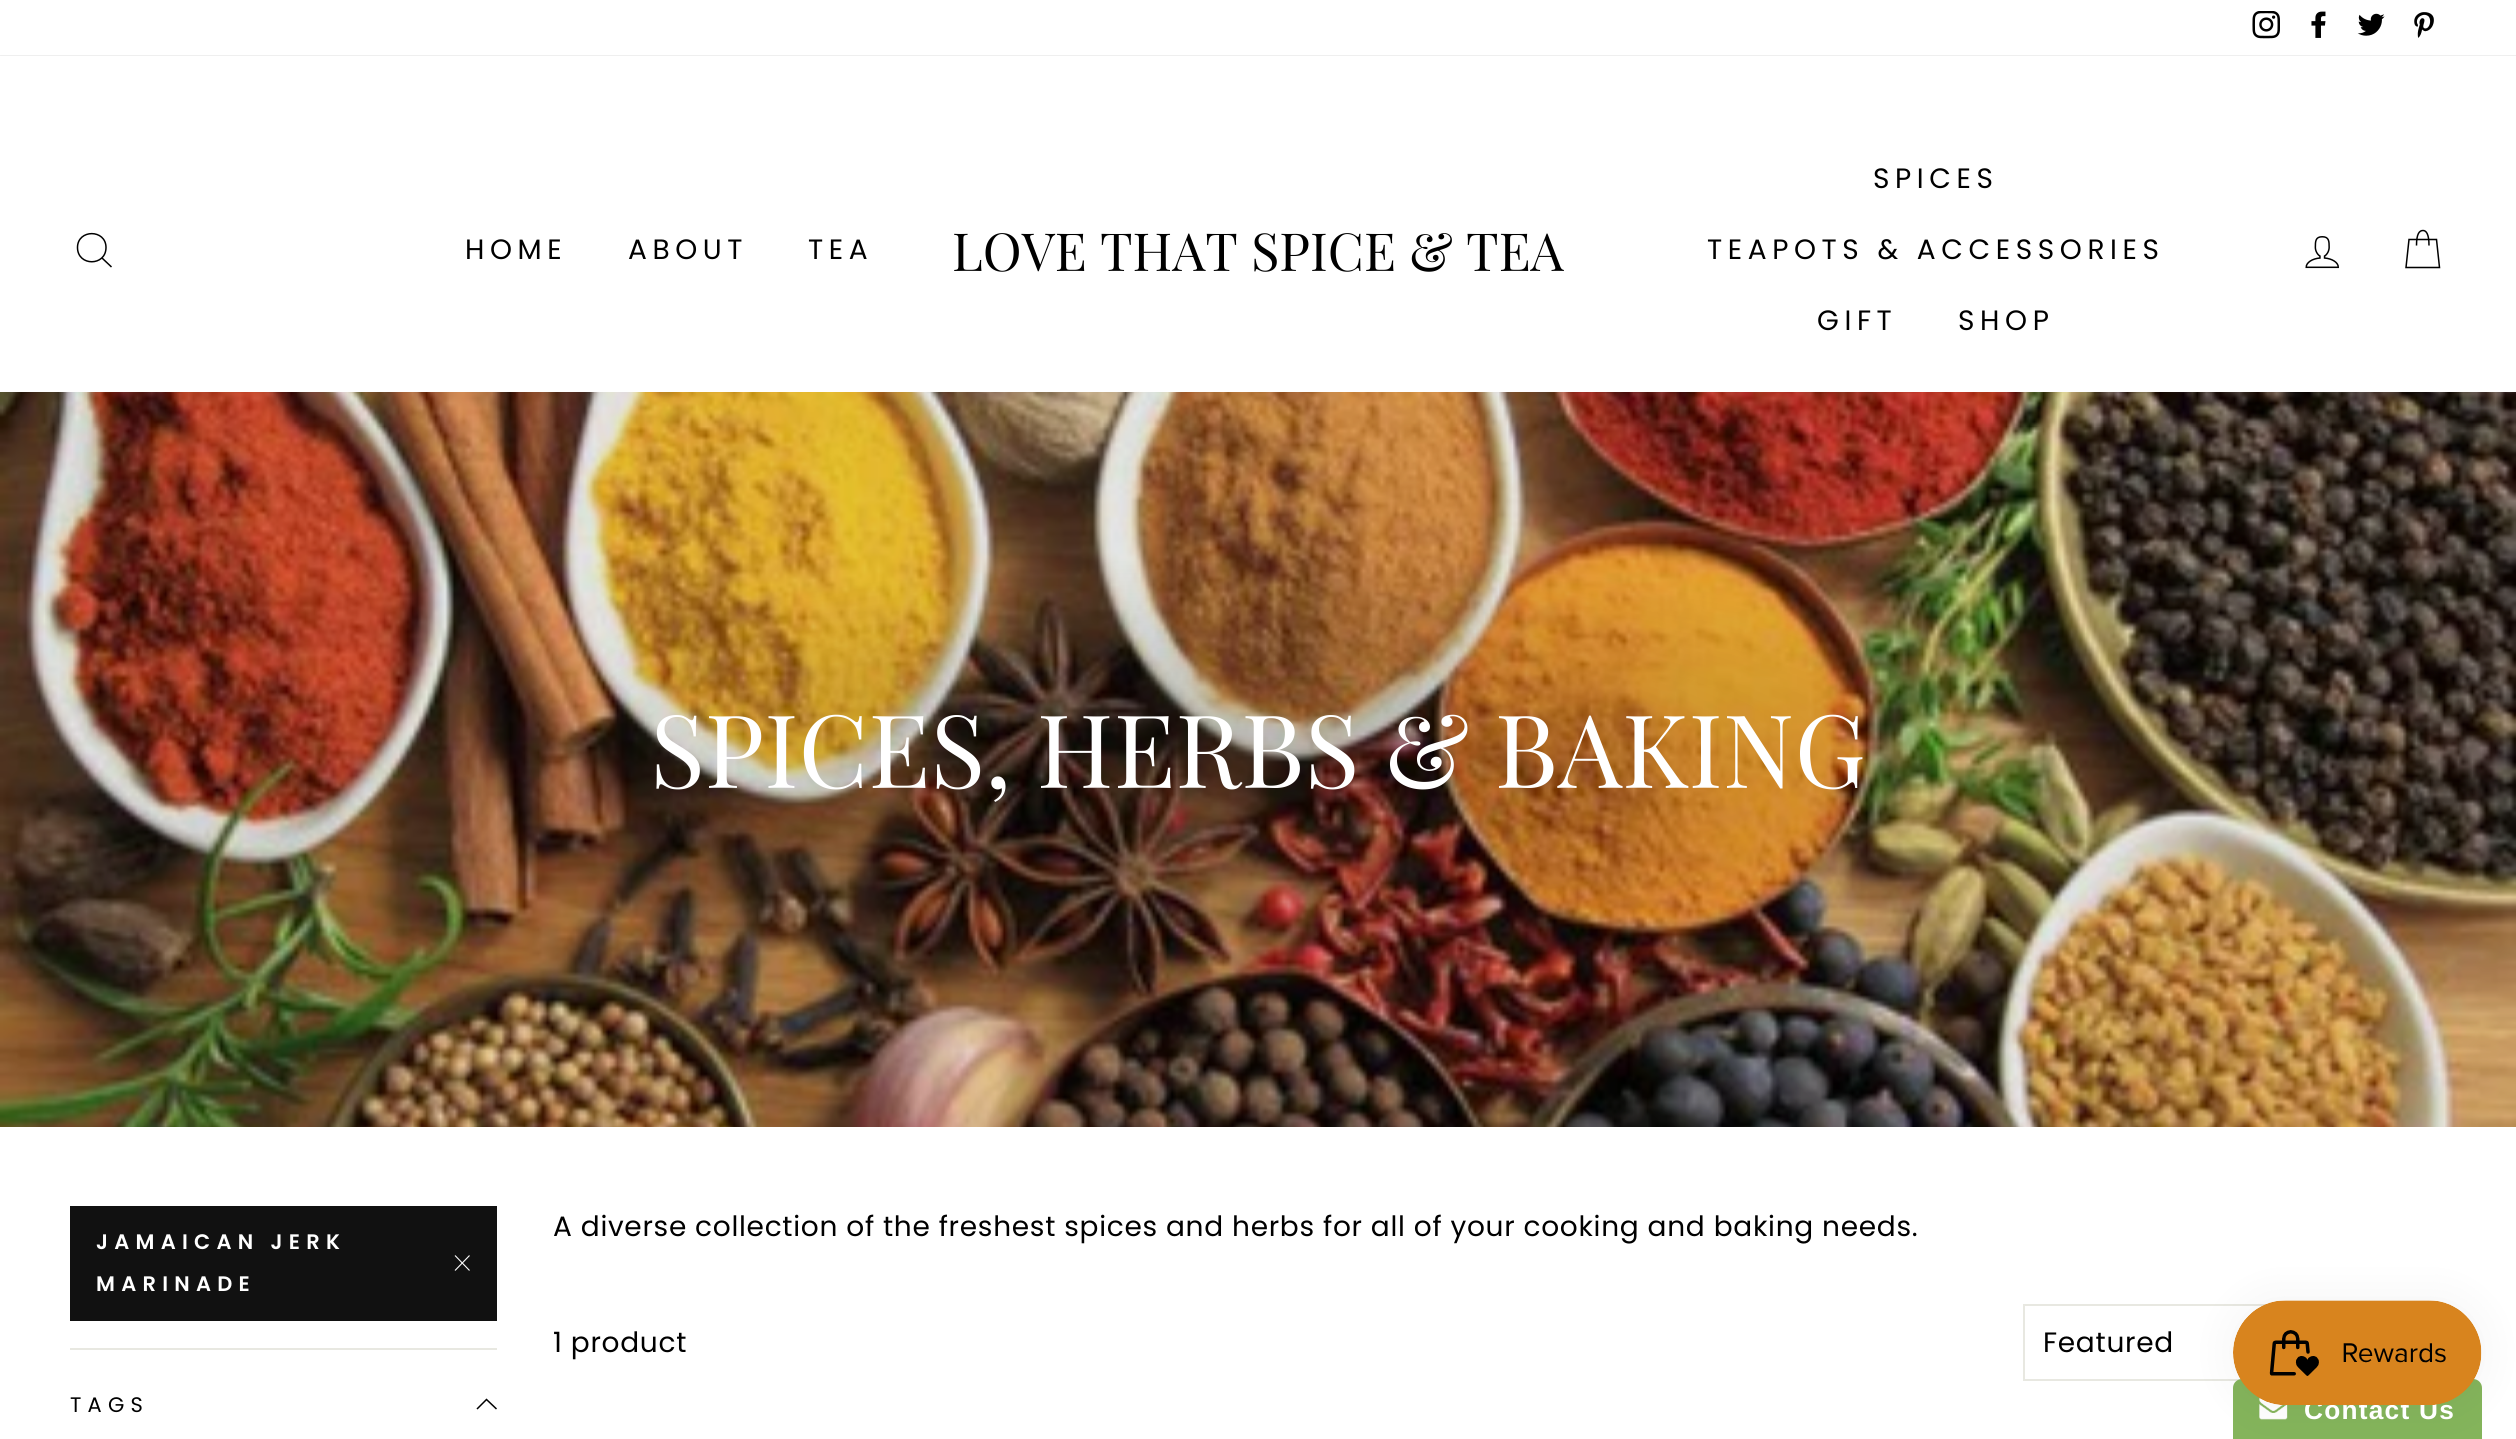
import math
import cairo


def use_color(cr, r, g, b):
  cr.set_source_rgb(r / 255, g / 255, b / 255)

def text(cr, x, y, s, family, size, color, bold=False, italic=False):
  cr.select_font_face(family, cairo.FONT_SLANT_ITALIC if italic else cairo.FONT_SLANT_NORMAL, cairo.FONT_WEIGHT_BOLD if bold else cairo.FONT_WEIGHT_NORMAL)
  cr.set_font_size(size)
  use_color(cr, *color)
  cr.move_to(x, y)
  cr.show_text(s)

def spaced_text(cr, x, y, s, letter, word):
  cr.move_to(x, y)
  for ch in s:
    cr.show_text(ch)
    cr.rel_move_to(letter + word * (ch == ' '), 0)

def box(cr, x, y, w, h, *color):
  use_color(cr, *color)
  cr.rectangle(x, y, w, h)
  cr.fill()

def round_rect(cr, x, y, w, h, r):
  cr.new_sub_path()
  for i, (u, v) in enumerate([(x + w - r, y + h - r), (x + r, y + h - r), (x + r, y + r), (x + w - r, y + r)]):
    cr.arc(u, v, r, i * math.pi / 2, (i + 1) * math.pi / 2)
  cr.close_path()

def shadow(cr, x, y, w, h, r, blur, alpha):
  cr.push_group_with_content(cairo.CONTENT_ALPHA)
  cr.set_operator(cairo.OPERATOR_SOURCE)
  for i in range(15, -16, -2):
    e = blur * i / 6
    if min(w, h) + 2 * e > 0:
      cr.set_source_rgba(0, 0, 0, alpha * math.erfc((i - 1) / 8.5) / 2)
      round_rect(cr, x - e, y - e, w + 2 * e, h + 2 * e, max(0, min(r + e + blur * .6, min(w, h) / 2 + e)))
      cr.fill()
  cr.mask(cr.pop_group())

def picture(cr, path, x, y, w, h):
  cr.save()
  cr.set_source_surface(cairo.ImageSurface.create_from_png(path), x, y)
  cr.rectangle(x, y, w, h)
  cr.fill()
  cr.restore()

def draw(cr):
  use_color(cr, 255, 255, 255)
  cr.paint()
  picture(cr, "img_01.png", 2252, 11, 28, 28)
  picture(cr, "img_02.png", 2311, 11, 15, 27)
  picture(cr, "img_03.png", 2357, 13, 28, 23)
  picture(cr, "img_04.png", 2414, 12, 20, 26)
  cr.save()
  cr.rectangle(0, 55, 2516, 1)
  cr.clip()
  use_color(cr, 0, 0, 0)
  shadow(cr, 0, 56, 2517, 336, 0, 1, 0.2)
  cr.restore()
  cr.new_path()
  cr.move_to(106, 247.5)
  cr.curve_to(106, 266.5, 77.5, 266.5, 77.5, 247.5)
  cr.curve_to(77.5, 229, 106, 229, 106, 247.5)
  cr.close_path()
  cr.move_to(111.5, 267)
  cr.line_to(102, 258)
  use_color(cr, 0, 0, 0)
  cr.set_line_width(1.5)
  cr.stroke()
  picture(cr, "img_05.png", 2305, 236, 35, 33)
  cr.new_path()
  cr.move_to(2416.5, 245.5)
  cr.curve_to(2416.5, 233.5, 2419.5, 230.5, 2423, 230.5)
  cr.curve_to(2426, 230.5, 2429, 233.5, 2429, 245.5)
  cr.move_to(2409, 239.5)
  cr.line_to(2436.5, 239.5)
  cr.line_to(2439.5, 267.5)
  cr.line_to(2406, 267.5)
  cr.close_path()
  cr.stroke()
  picture(cr, "img_06.png", 0, 392, 2516, 735)
  box(cr, 70, 1206, 427, 115, 17, 17, 17)
  cr.new_path()
  cr.move_to(455, 1255.5)
  cr.line_to(469.5, 1270.5)
  cr.move_to(469.5, 1255.5)
  cr.line_to(455, 1270.5)
  use_color(cr, 255, 255, 255)
  cr.set_line_width(1.1)
  cr.stroke()
  box(cr, 70, 1348, 427, 2, 232, 232, 225)
  cr.new_path()
  cr.move_to(477, 1409)
  cr.line_to(486.5, 1399.5)
  cr.line_to(496.5, 1409)
  use_color(cr, 0, 0, 0)
  cr.set_line_width(1.5)
  cr.stroke()
  cr.rectangle(2024, 1305, 422, 75)
  use_color(cr, 232, 232, 225)
  cr.set_line_width(2)
  cr.stroke()
  use_color(cr, 132, 180, 91)
  cr.new_path()
  cr.move_to(2242, 1379)
  cr.line_to(2473, 1379)
  cr.curve_to(2478, 1379, 2482, 1383, 2482, 1388)
  cr.line_to(2482, 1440)
  cr.line_to(2233, 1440)
  cr.line_to(2233, 1388)
  cr.curve_to(2233, 1383, 2237, 1379, 2242, 1379)
  cr.close_path()
  cr.fill()
  picture(cr, "img_08.png", 2259, 1397, 29, 23)
  use_color(cr, 0, 0, 0)
  shadow(cr, 2233, 1300, 249, 105, 52.5, 22, 0.05)
  cr.select_font_face("Poppins")
  cr.set_font_size(28)
  use_color(cr, 0, 0, 0)
  spaced_text(cr, 465, 259, "HOME", 5.6, 0)
  spaced_text(cr, 628, 259, "ABOUT", 5.6, 0)
  spaced_text(cr, 808, 259, "TEA", 5.6, 0)
  text(cr, 952, 271, "LOVE THAT SPICE & TEA", "Playfair Display", 52.5, (0, 0, 0))
  cr.select_font_face("Poppins")
  cr.set_font_size(28)
  spaced_text(cr, 1873, 188, "SPICES", 5.6, 0)
  spaced_text(cr, 1707, 259, "TEAPOTS & ACCESSORIES", 5.6, 0)
  spaced_text(cr, 1817, 330, "GIFT", 5.6, 0)
  spaced_text(cr, 1958, 330, "SHOP", 5.6, 0)
  text(cr, 650, 788, "SPICES, HERBS & BAKING", "Playfair Display", 101.5, (255, 255, 255))
  cr.select_font_face("Poppins SemiBold")
  cr.set_font_size(21)
  spaced_text(cr, 96, 1249, "JAMAICAN JERK", 6.25, 0)
  spaced_text(cr, 96, 1291, "MARINADE", 6.25, 0)
  cr.select_font_face("Poppins")
  use_color(cr, 0, 0, 0)
  spaced_text(cr, 70, 1412, "TAGS", 6.25, 0)
  cr.set_font_size(28)
  spaced_text(cr, 553, 1236, "A diverse collection of the freshest spices and herbs for all of your cooking and baking needs.", 0.7, 0)
  spaced_text(cr, 553, 1352, "1 product", 0.7, 0)
  spaced_text(cr, 2043, 1352, "Featured", 0.7, 0)
  cr.select_font_face("Liberation Sans", cairo.FONT_SLANT_NORMAL, cairo.FONT_WEIGHT_BOLD)
  cr.set_font_size(26.25)
  use_color(cr, 255, 255, 255)
  spaced_text(cr, 2304, 1419, "Contact Us", 1.25, 0)
  picture(cr, "img_07.png", 2233, 1300, 249, 105)


surface = cairo.ImageSurface(cairo.FORMAT_RGB24, 2516, 1439)
cr = cairo.Context(surface)
options = cairo.FontOptions()
options.set_hint_metrics(cairo.HINT_METRICS_OFF)
options.set_hint_style(cairo.HINT_STYLE_NONE)
cr.set_font_options(options)
cr.set_miter_limit(4)
draw(cr)
surface.write_to_png("out.png")
